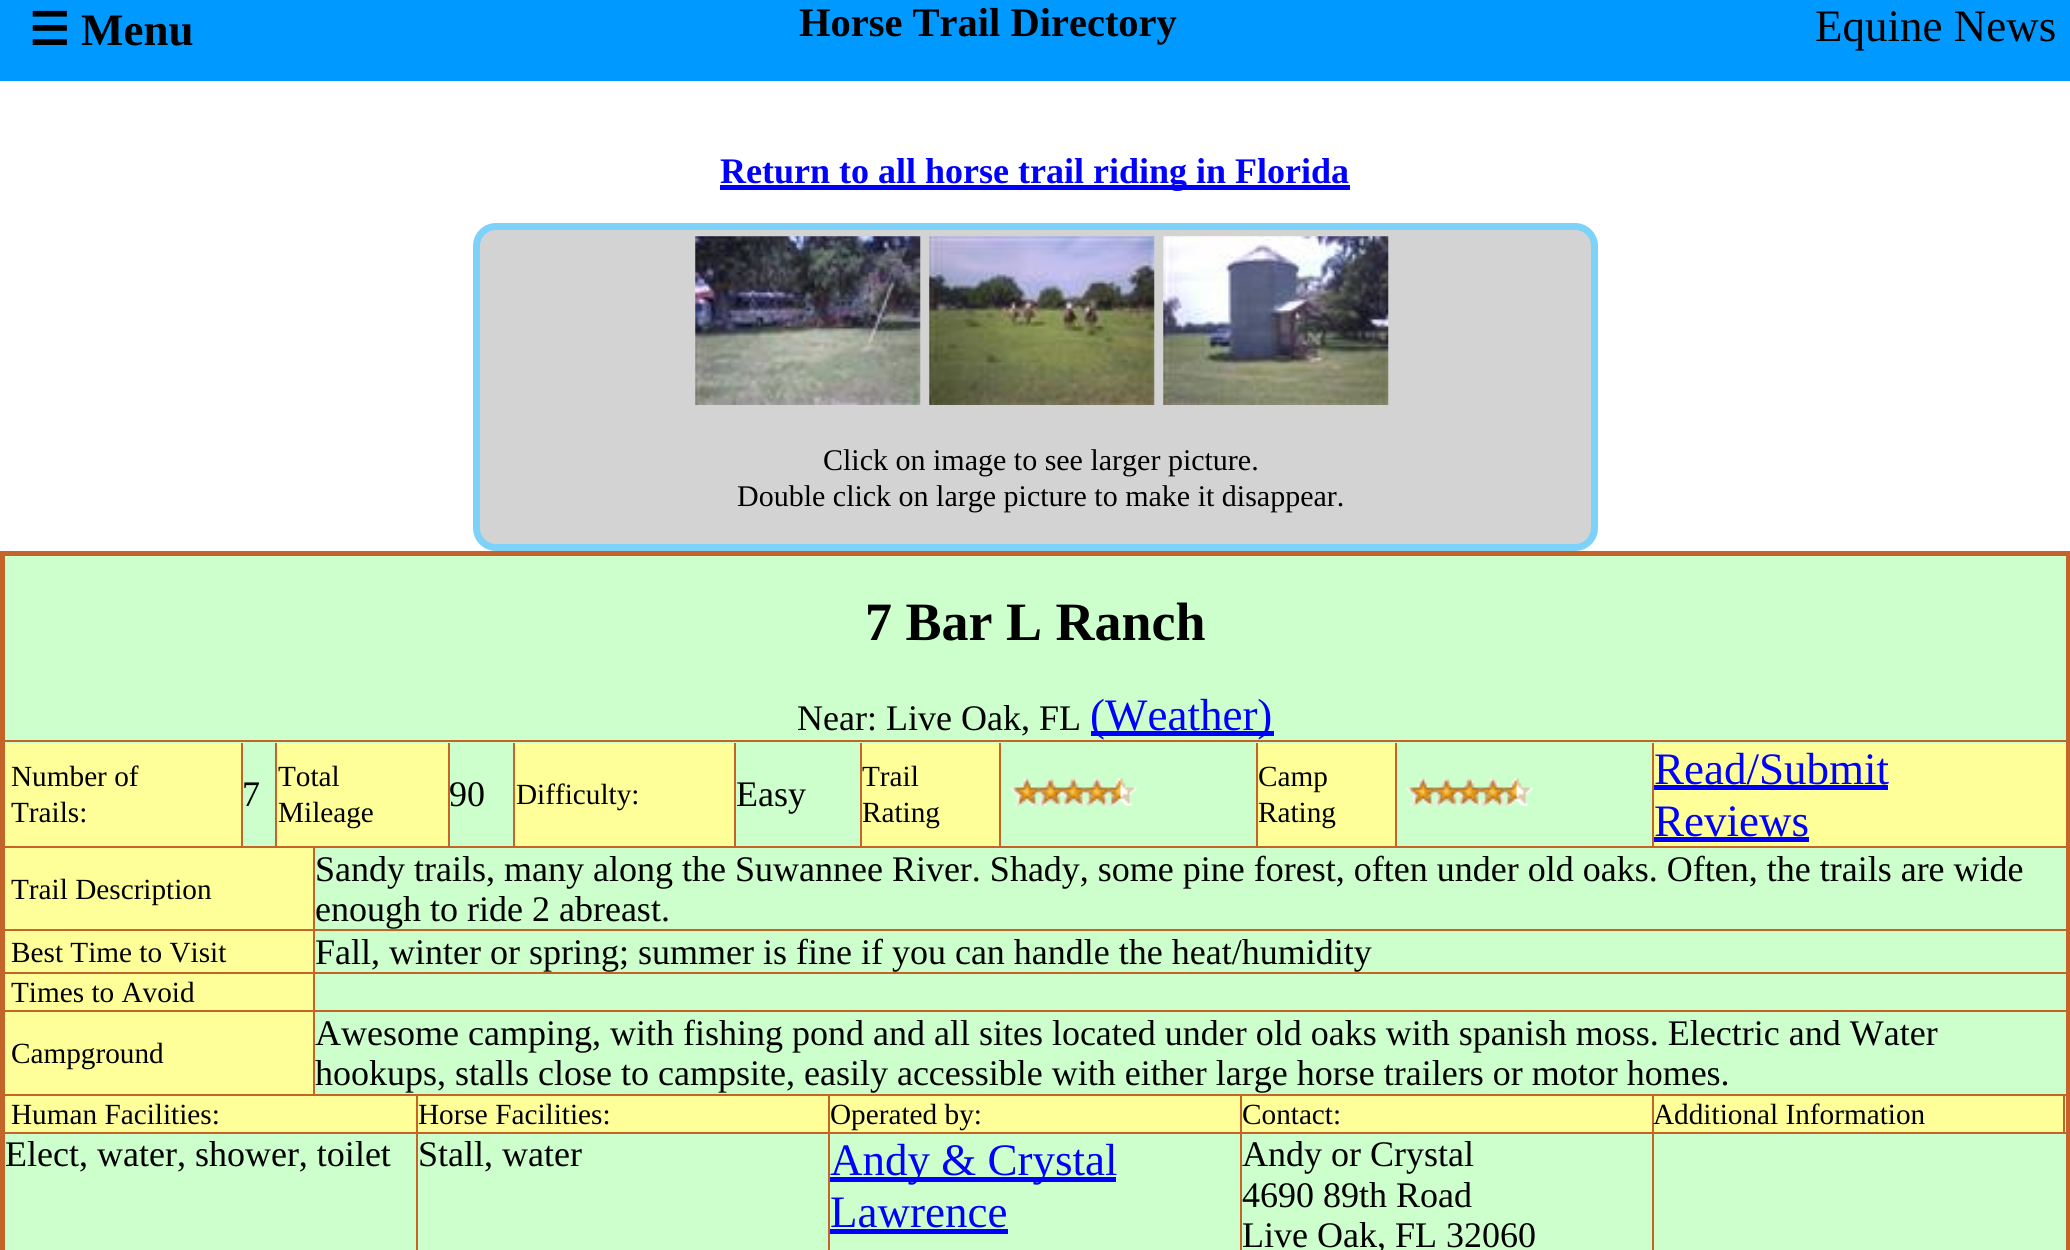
import math
import cairo


def use_color(cr, r, g, b):
  cr.set_source_rgb(r / 255, g / 255, b / 255)

def text(cr, x, y, s, family, size, color, bold=False, italic=False):
  cr.select_font_face(family, cairo.FONT_SLANT_ITALIC if italic else cairo.FONT_SLANT_NORMAL, cairo.FONT_WEIGHT_BOLD if bold else cairo.FONT_WEIGHT_NORMAL)
  cr.set_font_size(size)
  use_color(cr, *color)
  cr.move_to(x, y)
  cr.show_text(s)

def box(cr, x, y, w, h, *color):
  use_color(cr, *color)
  cr.rectangle(x, y, w, h)
  cr.fill()

def round_rect(cr, x, y, w, h, r):
  cr.new_sub_path()
  for i, (u, v) in enumerate([(x + w - r, y + h - r), (x + r, y + h - r), (x + r, y + r), (x + w - r, y + r)]):
    cr.arc(u, v, r, i * math.pi / 2, (i + 1) * math.pi / 2)
  cr.close_path()

def picture(cr, path, x, y, w, h):
  cr.save()
  cr.set_source_surface(cairo.ImageSurface.create_from_png(path), x, y)
  cr.rectangle(x, y, w, h)
  cr.fill()
  cr.restore()

def draw(cr):
  use_color(cr, 255, 255, 255)
  cr.paint()
  box(cr, 0, 0, 2070, 81, 0, 153, 255)
  box(cr, 720, 185, 630, 5, 0, 0, 255)
  use_color(cr, 211, 211, 211)
  round_rect(cr, 476.5, 226.5, 1118, 321, 19.5)
  cr.fill_preserve()
  use_color(cr, 124, 210, 248)
  cr.set_line_width(7)
  cr.stroke()
  picture(cr, "img_01.png", 695, 236, 226, 169)
  picture(cr, "img_02.png", 929, 236, 226, 169)
  picture(cr, "img_03.png", 1163, 236, 226, 169)
  box(cr, 5, 556, 2061, 694, 204, 255, 204)
  box(cr, 0, 551, 2070, 5, 196, 100, 40)
  box(cr, 5, 740, 2063, 2, 196, 100, 40)
  box(cr, 1652, 846, 416, 2, 196, 100, 40)
  box(cr, 313, 1094, 1755, 2, 196, 100, 40)
  box(cr, 313, 1010, 2, 86, 196, 100, 40)
  box(cr, 313, 1010, 1755, 2, 196, 100, 40)
  box(cr, 313, 972, 2, 41, 196, 100, 40)
  box(cr, 313, 972, 1755, 2, 196, 100, 40)
  box(cr, 313, 929, 2, 45, 196, 100, 40)
  box(cr, 313, 929, 1755, 2, 196, 100, 40)
  box(cr, 2066, 551, 4, 699, 196, 100, 40)
  box(cr, 0, 551, 5, 699, 196, 100, 40)
  box(cr, 1091, 731, 183, 5, 0, 0, 255)
  box(cr, 5, 743, 236, 103, 255, 255, 153)
  box(cr, 1652, 743, 2, 105, 196, 100, 40)
  box(cr, 1395, 846, 259, 2, 196, 100, 40)
  box(cr, 1395, 743, 2, 105, 196, 100, 40)
  box(cr, 1256, 846, 141, 2, 196, 100, 40)
  box(cr, 1256, 743, 2, 105, 196, 100, 40)
  box(cr, 999, 846, 259, 2, 196, 100, 40)
  box(cr, 999, 743, 2, 105, 196, 100, 40)
  box(cr, 860, 846, 141, 2, 196, 100, 40)
  box(cr, 860, 743, 2, 105, 196, 100, 40)
  box(cr, 734, 846, 128, 2, 196, 100, 40)
  box(cr, 734, 743, 2, 105, 196, 100, 40)
  box(cr, 513, 846, 223, 2, 196, 100, 40)
  box(cr, 513, 743, 2, 105, 196, 100, 40)
  box(cr, 448, 846, 67, 2, 196, 100, 40)
  box(cr, 448, 743, 2, 105, 196, 100, 40)
  box(cr, 275, 846, 175, 2, 196, 100, 40)
  box(cr, 275, 743, 2, 105, 196, 100, 40)
  box(cr, 241, 846, 36, 2, 196, 100, 40)
  box(cr, 241, 743, 2, 105, 196, 100, 40)
  box(cr, 5, 846, 238, 2, 196, 100, 40)
  box(cr, 277, 743, 171, 103, 255, 255, 153)
  box(cr, 515, 743, 219, 103, 255, 255, 153)
  box(cr, 862, 743, 137, 103, 255, 255, 153)
  picture(cr, "img_04.png", 1009, 778, 128, 28)
  box(cr, 1258, 743, 137, 103, 255, 255, 153)
  picture(cr, "img_05.png", 1405, 778, 128, 28)
  box(cr, 1654, 743, 412, 103, 255, 255, 153)
  box(cr, 1654, 785, 234, 5, 0, 0, 255)
  box(cr, 1654, 837, 155, 5, 0, 0, 255)
  box(cr, 5, 848, 308, 124, 255, 255, 153)
  box(cr, 313, 848, 2, 84, 196, 100, 40)
  box(cr, 5, 929, 310, 2, 196, 100, 40)
  box(cr, 5, 972, 310, 2, 196, 100, 40)
  box(cr, 5, 974, 308, 120, 255, 255, 153)
  box(cr, 5, 1010, 310, 2, 196, 100, 40)
  box(cr, 5, 1094, 310, 2, 196, 100, 40)
  box(cr, 5, 1096, 411, 36, 255, 255, 153)
  box(cr, 1654, 1096, 412, 36, 255, 255, 153)
  box(cr, 2063, 1096, 2, 38, 196, 100, 40)
  box(cr, 1652, 1132, 2, 118, 196, 100, 40)
  box(cr, 1652, 1132, 414, 2, 196, 100, 40)
  box(cr, 1652, 1096, 2, 38, 196, 100, 40)
  box(cr, 1240, 1132, 2, 118, 196, 100, 40)
  box(cr, 1240, 1132, 414, 2, 196, 100, 40)
  box(cr, 1240, 1096, 2, 38, 196, 100, 40)
  box(cr, 828, 1132, 2, 118, 196, 100, 40)
  box(cr, 828, 1132, 414, 2, 196, 100, 40)
  box(cr, 828, 1096, 2, 38, 196, 100, 40)
  box(cr, 416, 1132, 2, 118, 196, 100, 40)
  box(cr, 416, 1132, 414, 2, 196, 100, 40)
  box(cr, 416, 1096, 2, 38, 196, 100, 40)
  box(cr, 5, 1132, 414, 2, 196, 100, 40)
  box(cr, 418, 1096, 410, 36, 255, 255, 153)
  box(cr, 830, 1096, 410, 36, 255, 255, 153)
  box(cr, 1242, 1096, 410, 36, 255, 255, 153)
  box(cr, 830, 1177, 286, 5, 0, 0, 255)
  box(cr, 830, 1229, 178, 5, 0, 0, 255)
  text(cr, 29, 45, "☰", "DejaVu Sans", 45, (0, 0, 0), bold=True)
  text(cr, 81, 45, "Menu", "Liberation Serif", 45, (0, 0, 0), bold=True)
  text(cr, 799, 36, "Horse Trail Directory", "Liberation Serif", 40.5, (0, 0, 0), bold=True)
  text(cr, 1815, 41, "Equine News", "Liberation Serif", 45, (0, 0, 0))
  text(cr, 720, 183, "Return to all horse trail riding in Florida", "Liberation Serif", 36, (0, 0, 255), bold=True)
  text(cr, 823, 470, "Click on image to see larger picture.", "Liberation Serif", 30, (0, 0, 0))
  text(cr, 737, 506, "Double click on large picture to make it disappear.", "Liberation Serif", 30, (0, 0, 0))
  text(cr, 865, 640, "7 Bar L Ranch", "Liberation Serif", 54, (0, 0, 0), bold=True)
  text(cr, 797, 730, "Near: Live Oak, FL", "Liberation Serif", 36, (0, 0, 0))
  text(cr, 1090, 730, "(Weather)", "Liberation Serif", 45, (0, 0, 255))
  text(cr, 11, 786, "Number of", "Liberation Serif", 29.25, (0, 0, 0))
  text(cr, 11, 822, "Trails:", "Liberation Serif", 29.25, (0, 0, 0))
  text(cr, 242, 806, "7", "Liberation Serif", 36, (0, 0, 0))
  text(cr, 278, 786, "Total", "Liberation Serif", 29.25, (0, 0, 0))
  text(cr, 278, 822, "Mileage", "Liberation Serif", 29.25, (0, 0, 0))
  text(cr, 449, 806, "90", "Liberation Serif", 36, (0, 0, 0))
  text(cr, 516, 804, "Difficulty:", "Liberation Serif", 29.25, (0, 0, 0))
  text(cr, 736, 806, "Easy", "Liberation Serif", 36, (0, 0, 0))
  text(cr, 862, 786, "Trail", "Liberation Serif", 29.25, (0, 0, 0))
  text(cr, 862, 822, "Rating", "Liberation Serif", 29.25, (0, 0, 0))
  text(cr, 1258, 786, "Camp", "Liberation Serif", 29.25, (0, 0, 0))
  text(cr, 1258, 822, "Rating", "Liberation Serif", 29.25, (0, 0, 0))
  text(cr, 1654, 784, "Read/Submit", "Liberation Serif", 45, (0, 0, 255))
  text(cr, 1654, 836, "Reviews", "Liberation Serif", 45, (0, 0, 255))
  text(cr, 11, 899, "Trail Description", "Liberation Serif", 29.25, (0, 0, 0))
  text(cr, 315, 881, "Sandy trails, many along the Suwannee River. Shady, some pine forest, often under old oaks. Often, the trails are wide", "Liberation Serif", 36, (0, 0, 0))
  text(cr, 315, 921, "enough to ride 2 abreast.", "Liberation Serif", 36, (0, 0, 0))
  text(cr, 11, 962, "Best Time to Visit", "Liberation Serif", 29.25, (0, 0, 0))
  text(cr, 315, 964, "Fall, winter or spring; summer is fine if you can handle the heat/humidity", "Liberation Serif", 36, (0, 0, 0))
  text(cr, 11, 1002, "Times to Avoid", "Liberation Serif", 29.25, (0, 0, 0))
  text(cr, 11, 1063, "Campground", "Liberation Serif", 29.25, (0, 0, 0))
  text(cr, 315, 1045, "Awesome camping, with fishing pond and all sites located under old oaks with spanish moss. Electric and Water", "Liberation Serif", 36, (0, 0, 0))
  text(cr, 315, 1085, "hookups, stalls close to campsite, easily accessible with either large horse trailers or motor homes.", "Liberation Serif", 36, (0, 0, 0))
  text(cr, 11, 1124, "Human Facilities:", "Liberation Serif", 29.25, (0, 0, 0))
  text(cr, 418, 1124, "Horse Facilities:", "Liberation Serif", 29.25, (0, 0, 0))
  text(cr, 830, 1124, "Operated by:", "Liberation Serif", 29.25, (0, 0, 0))
  text(cr, 1242, 1124, "Contact:", "Liberation Serif", 29.25, (0, 0, 0))
  text(cr, 1653, 1124, "Additional Information", "Liberation Serif", 29.25, (0, 0, 0))
  text(cr, 5, 1166, "Elect, water, shower, toilet", "Liberation Serif", 36, (0, 0, 0))
  text(cr, 418, 1166, "Stall, water", "Liberation Serif", 36, (0, 0, 0))
  text(cr, 830, 1175, "Andy & Crystal", "Liberation Serif", 45, (0, 0, 255))
  text(cr, 830, 1227, "Lawrence", "Liberation Serif", 45, (0, 0, 255))
  text(cr, 1242, 1166, "Andy or Crystal", "Liberation Serif", 36, (0, 0, 0))
  text(cr, 1242, 1207, "4690 89th Road", "Liberation Serif", 36, (0, 0, 0))
  text(cr, 1242, 1247, "Live Oak, FL 32060", "Liberation Serif", 36, (0, 0, 0))


surface = cairo.ImageSurface(cairo.FORMAT_RGB24, 2070, 1250)
cr = cairo.Context(surface)
options = cairo.FontOptions()
options.set_hint_metrics(cairo.HINT_METRICS_OFF)
options.set_hint_style(cairo.HINT_STYLE_NONE)
cr.set_font_options(options)
cr.set_miter_limit(4)
draw(cr)
surface.write_to_png("out.png")
